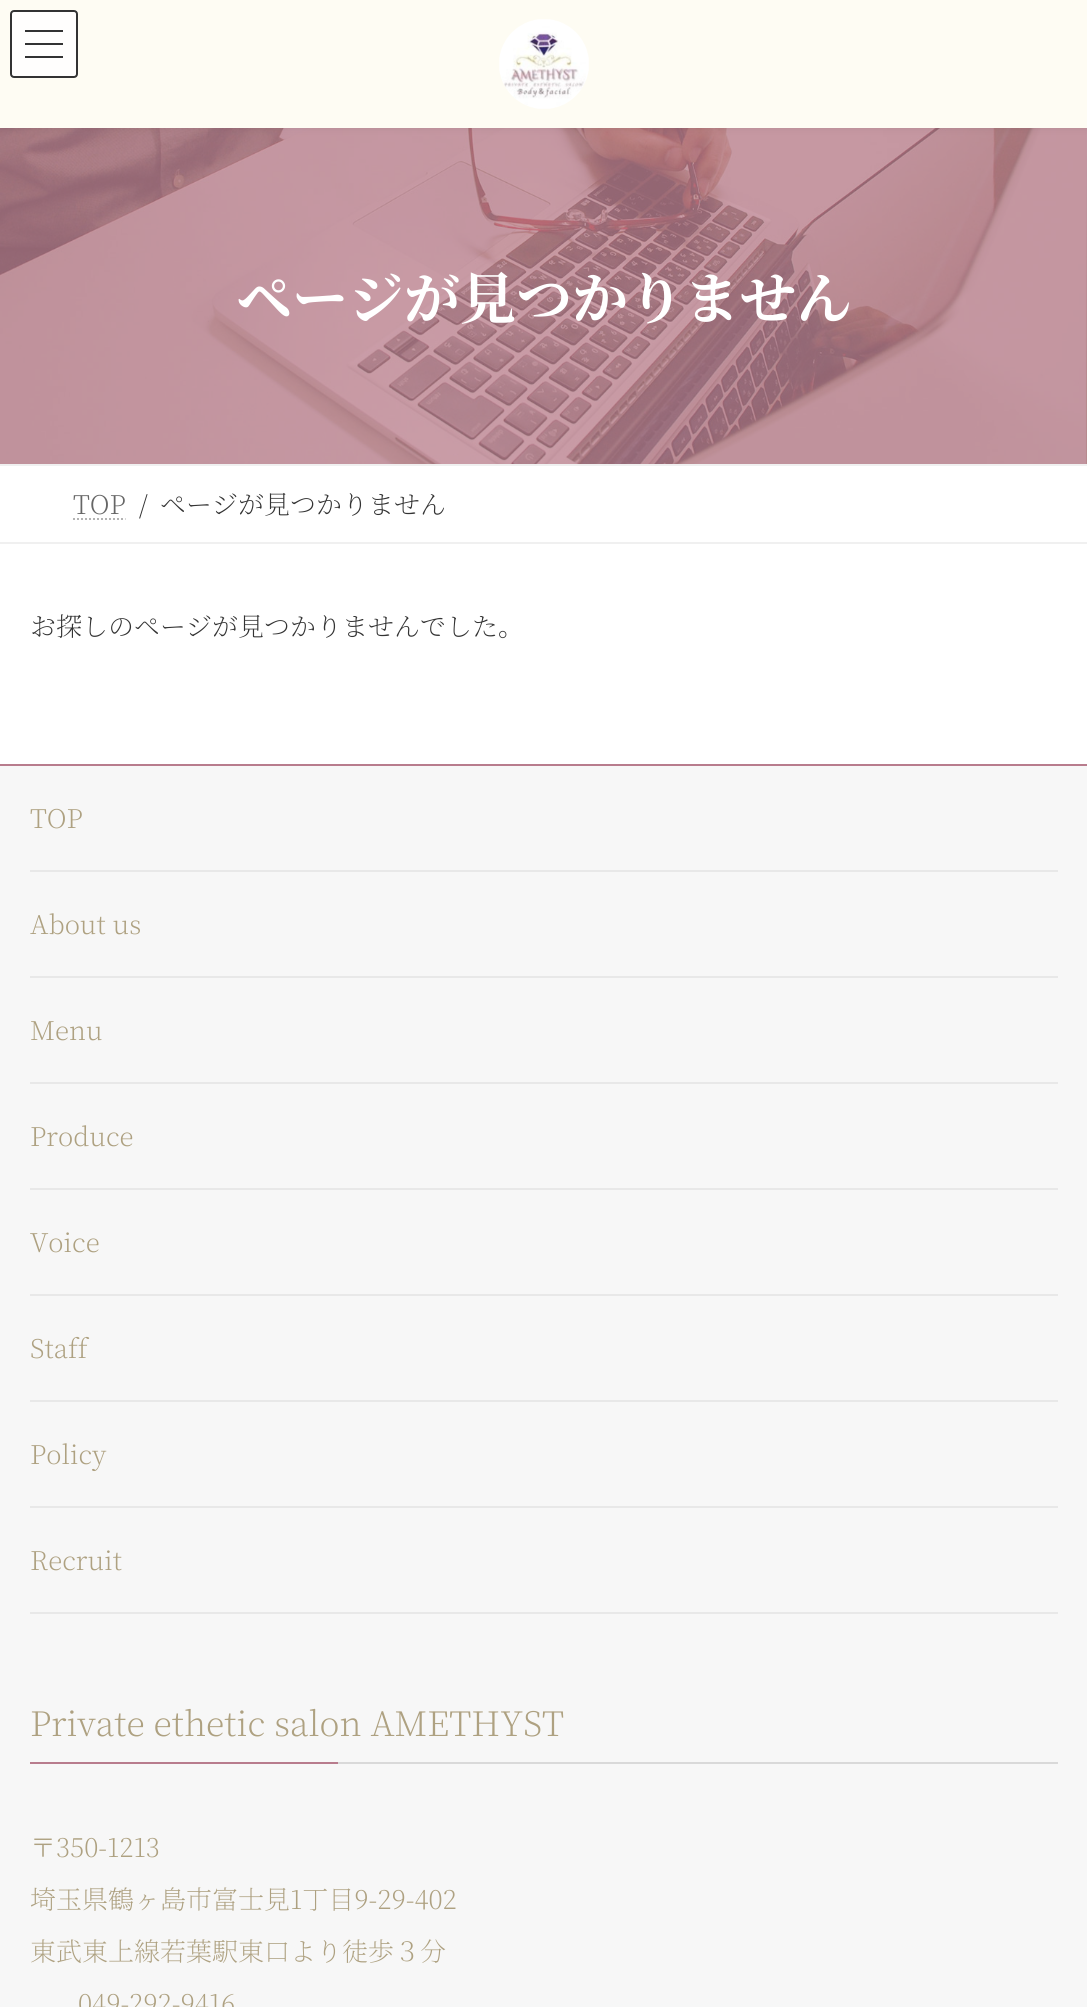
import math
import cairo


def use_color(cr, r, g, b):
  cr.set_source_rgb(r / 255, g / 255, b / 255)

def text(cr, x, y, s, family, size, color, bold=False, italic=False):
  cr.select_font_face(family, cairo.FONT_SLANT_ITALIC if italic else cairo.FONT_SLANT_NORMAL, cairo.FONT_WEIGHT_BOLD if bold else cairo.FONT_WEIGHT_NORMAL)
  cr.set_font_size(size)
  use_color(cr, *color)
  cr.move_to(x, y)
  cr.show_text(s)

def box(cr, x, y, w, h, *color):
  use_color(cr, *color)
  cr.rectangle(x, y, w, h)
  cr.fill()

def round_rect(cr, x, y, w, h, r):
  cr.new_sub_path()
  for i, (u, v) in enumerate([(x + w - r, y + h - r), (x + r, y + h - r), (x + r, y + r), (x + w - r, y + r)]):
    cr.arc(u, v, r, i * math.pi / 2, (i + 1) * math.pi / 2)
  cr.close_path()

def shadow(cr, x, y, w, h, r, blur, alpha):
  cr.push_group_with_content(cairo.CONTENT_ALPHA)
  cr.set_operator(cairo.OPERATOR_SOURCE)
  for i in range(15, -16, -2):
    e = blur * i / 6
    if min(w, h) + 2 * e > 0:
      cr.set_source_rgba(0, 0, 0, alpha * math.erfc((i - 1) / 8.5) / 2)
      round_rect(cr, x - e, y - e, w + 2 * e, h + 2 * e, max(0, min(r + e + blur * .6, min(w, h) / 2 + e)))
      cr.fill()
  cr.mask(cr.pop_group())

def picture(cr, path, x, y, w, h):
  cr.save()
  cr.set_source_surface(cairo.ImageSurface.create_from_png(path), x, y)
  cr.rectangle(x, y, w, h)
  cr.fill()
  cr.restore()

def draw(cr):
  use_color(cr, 255, 255, 255)
  cr.paint()
  picture(cr, "img_02.png", 0, 128, 1087, 336)
  use_color(cr, 0, 0, 0)
  shadow(cr, 0, 2, 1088, 128, 0, 3, 0.05)
  box(cr, 0, 0, 1087, 128, 254, 252, 243)
  picture(cr, "img_01.png", 499, 19, 90, 90)
  use_color(cr, 255, 254, 253)
  round_rect(cr, 10, 10, 68, 68, 4)
  cr.fill()
  box(cr, 25, 30, 38, 2, 51, 51, 51)
  box(cr, 25, 43, 38, 2, 51, 51, 51)
  box(cr, 25, 56, 38, 2, 51, 51, 51)
  round_rect(cr, 11, 11, 66, 66, 3)
  cr.stroke()
  box(cr, 0, 464, 1087, 2, 240, 240, 240)
  box(cr, 0, 542, 1087, 2, 240, 240, 240)
  cr.new_path()
  cr.move_to(73, 519)
  cr.line_to(125.5, 519)
  use_color(cr, 179, 179, 179)
  cr.set_dash([2, 2])
  cr.stroke()
  box(cr, 0, 766, 1087, 1241, 247, 247, 247)
  box(cr, 0, 764, 1087, 2, 184, 124, 141)
  box(cr, 30, 870, 1028, 2, 232, 232, 232)
  box(cr, 30, 976, 1028, 2, 232, 232, 232)
  box(cr, 30, 1082, 1028, 2, 232, 232, 232)
  box(cr, 30, 1188, 1028, 2, 232, 232, 232)
  box(cr, 30, 1294, 1028, 2, 232, 232, 232)
  box(cr, 30, 1400, 1028, 2, 232, 232, 232)
  box(cr, 30, 1506, 1028, 2, 232, 232, 232)
  box(cr, 30, 1612, 1028, 2, 232, 232, 232)
  box(cr, 338, 1762, 720, 2, 217, 217, 217)
  box(cr, 30, 1762, 308, 2, 184, 124, 141)
  text(cr, 236, 319, "ページが見つかりません", "Noto Serif JP", 56, (255, 255, 255), bold=True)
  text(cr, 73, 514, "TOP", "Noto Serif JP ExtraLight", 26, (102, 102, 102))
  text(cr, 139, 514, "/", "Noto Serif JP ExtraLight", 26, (51, 51, 51))
  text(cr, 160, 514, "ページが見つかりません", "Noto Serif JP ExtraLight", 26, (51, 51, 51))
  text(cr, 30, 636, "お探しのページが見つかりませんでした。", "Noto Serif JP ExtraLight", 26, (51, 51, 51))
  text(cr, 30, 828, "TOP", "Noto Serif JP ExtraLight", 26, (174, 161, 129))
  text(cr, 30, 934, "About us", "Noto Serif JP ExtraLight", 26, (174, 161, 129))
  text(cr, 30, 1040, "Menu", "Noto Serif JP ExtraLight", 26, (174, 161, 129))
  text(cr, 30, 1146, "Produce", "Noto Serif JP ExtraLight", 26, (174, 161, 129))
  text(cr, 30, 1252, "Voice", "Noto Serif JP ExtraLight", 26, (174, 161, 129))
  text(cr, 30, 1358, "Staff", "Noto Serif JP ExtraLight", 26, (174, 161, 129))
  text(cr, 30, 1464, "Policy", "Noto Serif JP ExtraLight", 26, (174, 161, 129))
  text(cr, 30, 1570, "Recruit", "Noto Serif JP ExtraLight", 26, (174, 161, 129))
  text(cr, 30, 1736, "Private ethetic salon AMETHYST", "Noto Serif JP ExtraLight", 34, (174, 161, 129))
  text(cr, 30, 1857, "〒350-1213", "Noto Serif JP ExtraLight", 26, (174, 161, 129))
  text(cr, 30, 1909, "埼玉県鶴ヶ島市富士見1丁目9-29-402", "Noto Serif JP ExtraLight", 26, (174, 161, 129))
  text(cr, 30, 1961, "東武東上線若葉駅東口より徒歩３分", "Noto Serif JP ExtraLight", 26, (174, 161, 129))
  text(cr, 78, 2013, "049-292-9416", "Noto Serif JP ExtraLight", 26, (174, 161, 129))


surface = cairo.ImageSurface(cairo.FORMAT_RGB24, 1087, 2007)
cr = cairo.Context(surface)
options = cairo.FontOptions()
options.set_hint_metrics(cairo.HINT_METRICS_OFF)
options.set_hint_style(cairo.HINT_STYLE_NONE)
cr.set_font_options(options)
cr.set_miter_limit(4)
draw(cr)
surface.write_to_png("out.png")
